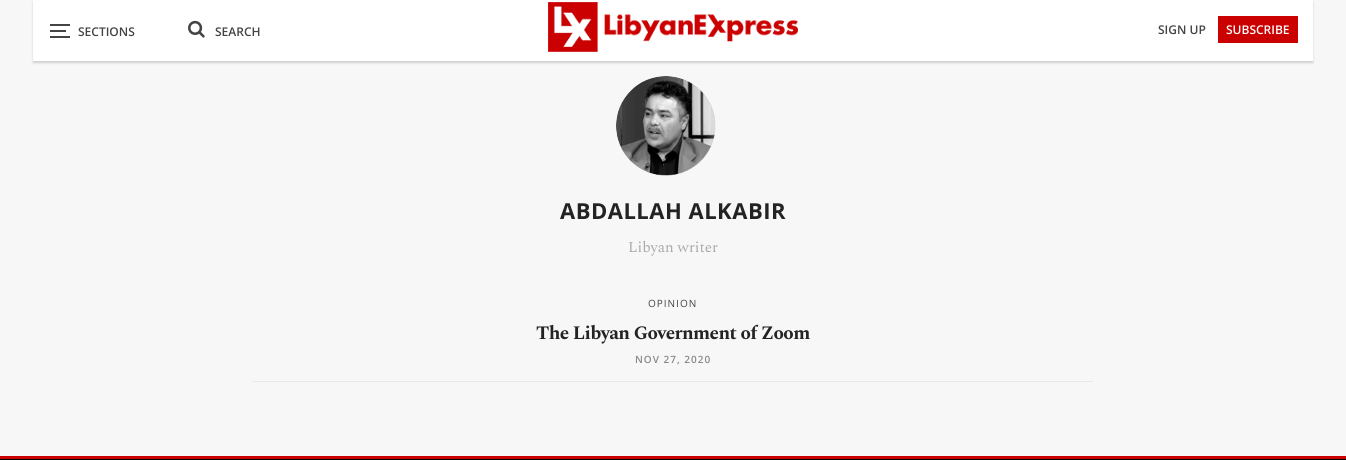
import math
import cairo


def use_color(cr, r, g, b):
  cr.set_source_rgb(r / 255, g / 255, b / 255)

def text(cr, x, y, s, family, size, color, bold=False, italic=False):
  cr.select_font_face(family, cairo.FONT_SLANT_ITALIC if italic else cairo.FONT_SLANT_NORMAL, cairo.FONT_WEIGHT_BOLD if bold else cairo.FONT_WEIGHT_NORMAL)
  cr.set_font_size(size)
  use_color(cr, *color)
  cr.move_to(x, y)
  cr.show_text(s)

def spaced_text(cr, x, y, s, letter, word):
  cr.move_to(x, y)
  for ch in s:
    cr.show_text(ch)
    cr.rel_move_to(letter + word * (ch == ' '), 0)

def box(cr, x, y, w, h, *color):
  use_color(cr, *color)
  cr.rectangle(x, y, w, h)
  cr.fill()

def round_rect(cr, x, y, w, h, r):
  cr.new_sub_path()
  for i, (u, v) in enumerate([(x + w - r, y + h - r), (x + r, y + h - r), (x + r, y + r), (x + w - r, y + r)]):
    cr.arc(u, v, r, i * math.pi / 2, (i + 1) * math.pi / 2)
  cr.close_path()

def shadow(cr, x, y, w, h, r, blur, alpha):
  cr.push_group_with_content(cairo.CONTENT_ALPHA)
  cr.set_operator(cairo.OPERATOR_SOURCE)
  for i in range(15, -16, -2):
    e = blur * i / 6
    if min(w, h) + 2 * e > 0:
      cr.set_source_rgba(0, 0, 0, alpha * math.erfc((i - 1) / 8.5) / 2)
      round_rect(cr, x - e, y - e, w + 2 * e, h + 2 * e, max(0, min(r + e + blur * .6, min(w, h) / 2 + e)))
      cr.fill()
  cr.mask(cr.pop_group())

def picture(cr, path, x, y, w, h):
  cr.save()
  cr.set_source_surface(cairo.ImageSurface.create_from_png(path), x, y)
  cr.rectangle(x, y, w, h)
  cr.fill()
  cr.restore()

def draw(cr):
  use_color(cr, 247, 247, 247)
  cr.paint()
  box(cr, 33, 0, 1280, 61, 255, 255, 255)
  cr.save()
  cr.set_fill_rule(cairo.FILL_RULE_EVEN_ODD)
  cr.new_path()
  cr.move_to(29, 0)
  cr.line_to(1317, 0)
  cr.line_to(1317, 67)
  cr.line_to(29, 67)
  cr.close_path()
  cr.move_to(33, 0)
  cr.line_to(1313, 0)
  cr.line_to(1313, 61)
  cr.line_to(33, 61)
  cr.close_path()
  cr.clip()
  use_color(cr, 0, 0, 0)
  shadow(cr, 33, 2, 1280, 61, 0, 1, 0.16)
  cr.restore()
  box(cr, 50, 30, 16, 2, 68, 68, 68)
  box(cr, 50, 24, 20, 2, 68, 68, 68)
  box(cr, 50, 36, 20, 2, 68, 68, 68)
  picture(cr, "img_01.png", 188, 20, 17, 18)
  picture(cr, "img_02.png", 548, 2, 250, 50)
  box(cr, 1218, 16, 80, 27, 203, 0, 0)
  picture(cr, "img_03.png", 616, 76, 100, 100)
  box(cr, 253, 381, 840, 1, 232, 232, 232)
  box(cr, 0, 459, 1346, 1, 0, 0, 0)
  box(cr, 0, 456, 1346, 3, 203, 0, 0)
  text(cr, 78, 36, "SECTIONS", "Open Sans SemiBold", 12, (68, 68, 68))
  text(cr, 215, 36, "SEARCH", "Open Sans SemiBold", 12, (68, 68, 68))
  text(cr, 1158, 34, "SIGN UP", "Open Sans SemiBold", 12, (68, 68, 68))
  text(cr, 1226, 34, "SUBSCRIBE", "Open Sans SemiBold", 12, (255, 255, 255))
  cr.select_font_face("Open Sans", cairo.FONT_SLANT_NORMAL, cairo.FONT_WEIGHT_BOLD)
  cr.set_font_size(22)
  use_color(cr, 35, 35, 35)
  spaced_text(cr, 560, 219, "ABDALLAH ALKABIR", 0.5, 0)
  text(cr, 628, 252, "Libyan writer", "Spectral", 15, (170, 170, 170))
  cr.select_font_face("Open Sans")
  cr.set_font_size(10)
  use_color(cr, 68, 68, 68)
  spaced_text(cr, 648, 307, "OPINION", 1, 0)
  cr.select_font_face("Spectral", cairo.FONT_SLANT_NORMAL, cairo.FONT_WEIGHT_BOLD)
  cr.set_font_size(19)
  use_color(cr, 35, 35, 35)
  spaced_text(cr, 536, 339, "The Libyan Government of Zoom", -0.6, 0)
  cr.select_font_face("Open Sans SemiBold")
  cr.set_font_size(10)
  use_color(cr, 137, 137, 137)
  spaced_text(cr, 635, 363, "NOV 27, 2020", 1, 0)


surface = cairo.ImageSurface(cairo.FORMAT_RGB24, 1346, 460)
cr = cairo.Context(surface)
options = cairo.FontOptions()
options.set_hint_metrics(cairo.HINT_METRICS_OFF)
options.set_hint_style(cairo.HINT_STYLE_NONE)
cr.set_font_options(options)
cr.set_miter_limit(4)
draw(cr)
surface.write_to_png("out.png")
